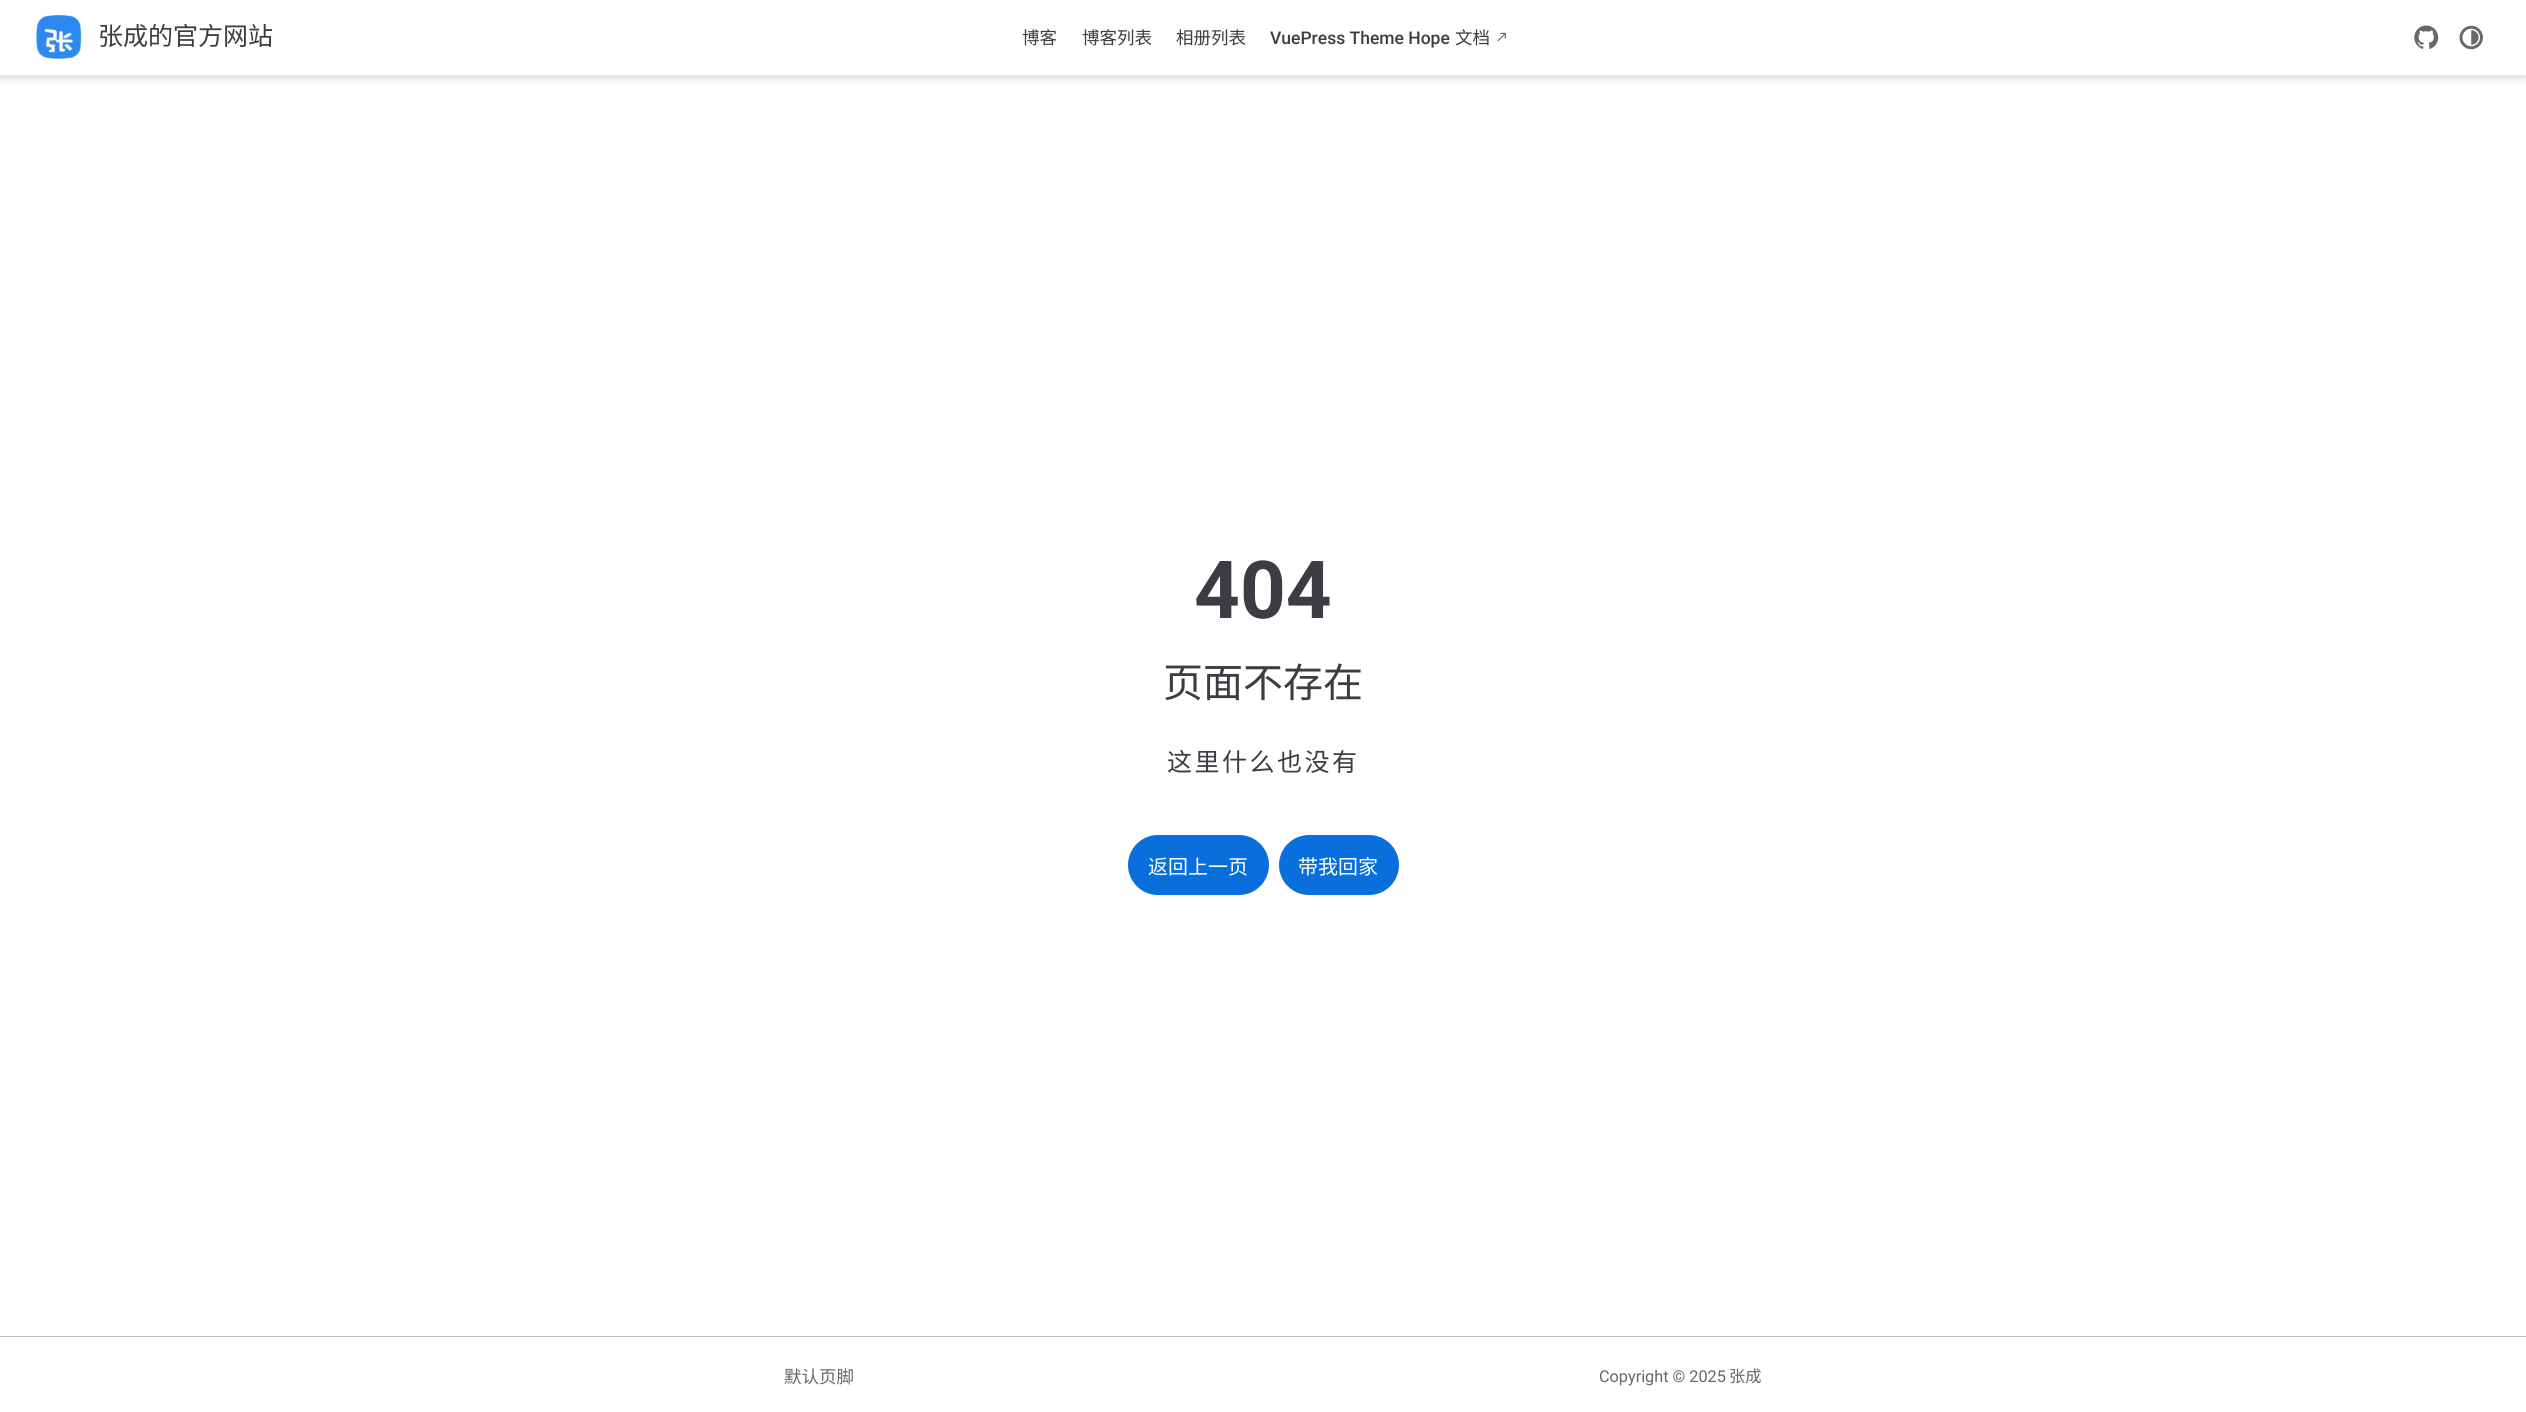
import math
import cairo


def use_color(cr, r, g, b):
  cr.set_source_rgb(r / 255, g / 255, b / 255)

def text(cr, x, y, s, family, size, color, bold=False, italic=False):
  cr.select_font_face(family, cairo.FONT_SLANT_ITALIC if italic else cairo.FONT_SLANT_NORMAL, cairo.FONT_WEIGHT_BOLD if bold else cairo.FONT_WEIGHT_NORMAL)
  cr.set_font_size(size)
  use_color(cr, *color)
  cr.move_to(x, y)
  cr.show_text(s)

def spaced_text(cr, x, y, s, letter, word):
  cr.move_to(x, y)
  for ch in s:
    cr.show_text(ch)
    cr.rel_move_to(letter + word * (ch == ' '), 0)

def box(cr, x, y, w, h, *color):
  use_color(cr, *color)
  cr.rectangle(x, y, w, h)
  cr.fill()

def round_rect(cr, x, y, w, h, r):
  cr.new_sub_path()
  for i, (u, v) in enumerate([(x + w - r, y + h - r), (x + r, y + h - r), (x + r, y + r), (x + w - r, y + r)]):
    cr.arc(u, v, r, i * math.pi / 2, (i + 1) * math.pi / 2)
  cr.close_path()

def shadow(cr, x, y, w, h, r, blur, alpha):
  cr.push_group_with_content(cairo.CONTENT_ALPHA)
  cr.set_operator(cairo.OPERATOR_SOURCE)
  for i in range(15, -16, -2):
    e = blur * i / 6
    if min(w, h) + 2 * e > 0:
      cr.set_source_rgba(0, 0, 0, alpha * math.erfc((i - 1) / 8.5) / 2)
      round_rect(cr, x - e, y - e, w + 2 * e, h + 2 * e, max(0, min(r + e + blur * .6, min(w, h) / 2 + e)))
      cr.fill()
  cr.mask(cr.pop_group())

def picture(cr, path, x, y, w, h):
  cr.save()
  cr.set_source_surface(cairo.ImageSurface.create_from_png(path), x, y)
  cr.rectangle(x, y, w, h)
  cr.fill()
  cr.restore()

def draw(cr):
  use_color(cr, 255, 255, 255)
  cr.paint()
  cr.save()
  cr.rectangle(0, 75, 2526, 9)
  cr.clip()
  use_color(cr, 0, 0, 0)
  shadow(cr, 0, 3, 2526, 75, 0, 5, 0.15)
  cr.restore()
  picture(cr, "img_01.png", 36, 14, 46, 45)
  picture(cr, "img_02.png", 1497, 32, 9, 10)
  picture(cr, "img_03.png", 2414, 25, 25, 24)
  picture(cr, "img_04.png", 2459, 25, 24, 25)
  use_color(cr, 9, 111, 220)
  round_rect(cr, 1128, 835, 141, 60, 30)
  cr.fill()
  round_rect(cr, 1279, 835, 120, 60, 30)
  cr.fill()
  box(cr, 0, 1336, 2526, 1, 194, 194, 196)
  text(cr, 98, 45, "张成的官方网站", "Noto Sans CJK SC", 25, (60, 60, 67))
  text(cr, 1022, 44, "博客", "Noto Sans CJK SC", 17.5, (60, 60, 67))
  text(cr, 1082, 44, "博客列表", "Noto Sans CJK SC", 17.5, (60, 60, 67))
  text(cr, 1176, 44, "相册列表", "Noto Sans CJK SC", 17.5, (60, 60, 67))
  text(cr, 1270, 44, "VuePress Theme Hope", "Roboto Medium", 17.5, (60, 60, 67))
  text(cr, 1455, 44, "文档", "Noto Sans CJK SC", 17.5, (60, 60, 67))
  text(cr, 1194, 618, "404", "Roboto", 80, (60, 60, 67), bold=True)
  text(cr, 1163, 697, "页面不存在", "Noto Sans CJK SC", 40, (60, 60, 67))
  cr.set_font_size(25)
  spaced_text(cr, 1167, 771, "这里什么也没有", 2.5, 0)
  text(cr, 1148, 874, "返回上一页", "Noto Sans CJK SC", 20, (255, 255, 255))
  text(cr, 1298, 874, "带我回家", "Noto Sans CJK SC", 20, (255, 255, 255))
  text(cr, 784, 1383, "默认页脚", "Noto Sans CJK SC", 17.5, (103, 103, 108))
  text(cr, 1599, 1382, "Copyright © 2025", "Roboto", 16.25, (103, 103, 108))
  text(cr, 1729, 1382, "张成", "Noto Sans CJK SC", 16.25, (103, 103, 108))


surface = cairo.ImageSurface(cairo.FORMAT_RGB24, 2526, 1412)
cr = cairo.Context(surface)
options = cairo.FontOptions()
options.set_hint_metrics(cairo.HINT_METRICS_OFF)
options.set_hint_style(cairo.HINT_STYLE_NONE)
cr.set_font_options(options)
cr.set_miter_limit(4)
draw(cr)
surface.write_to_png("out.png")
